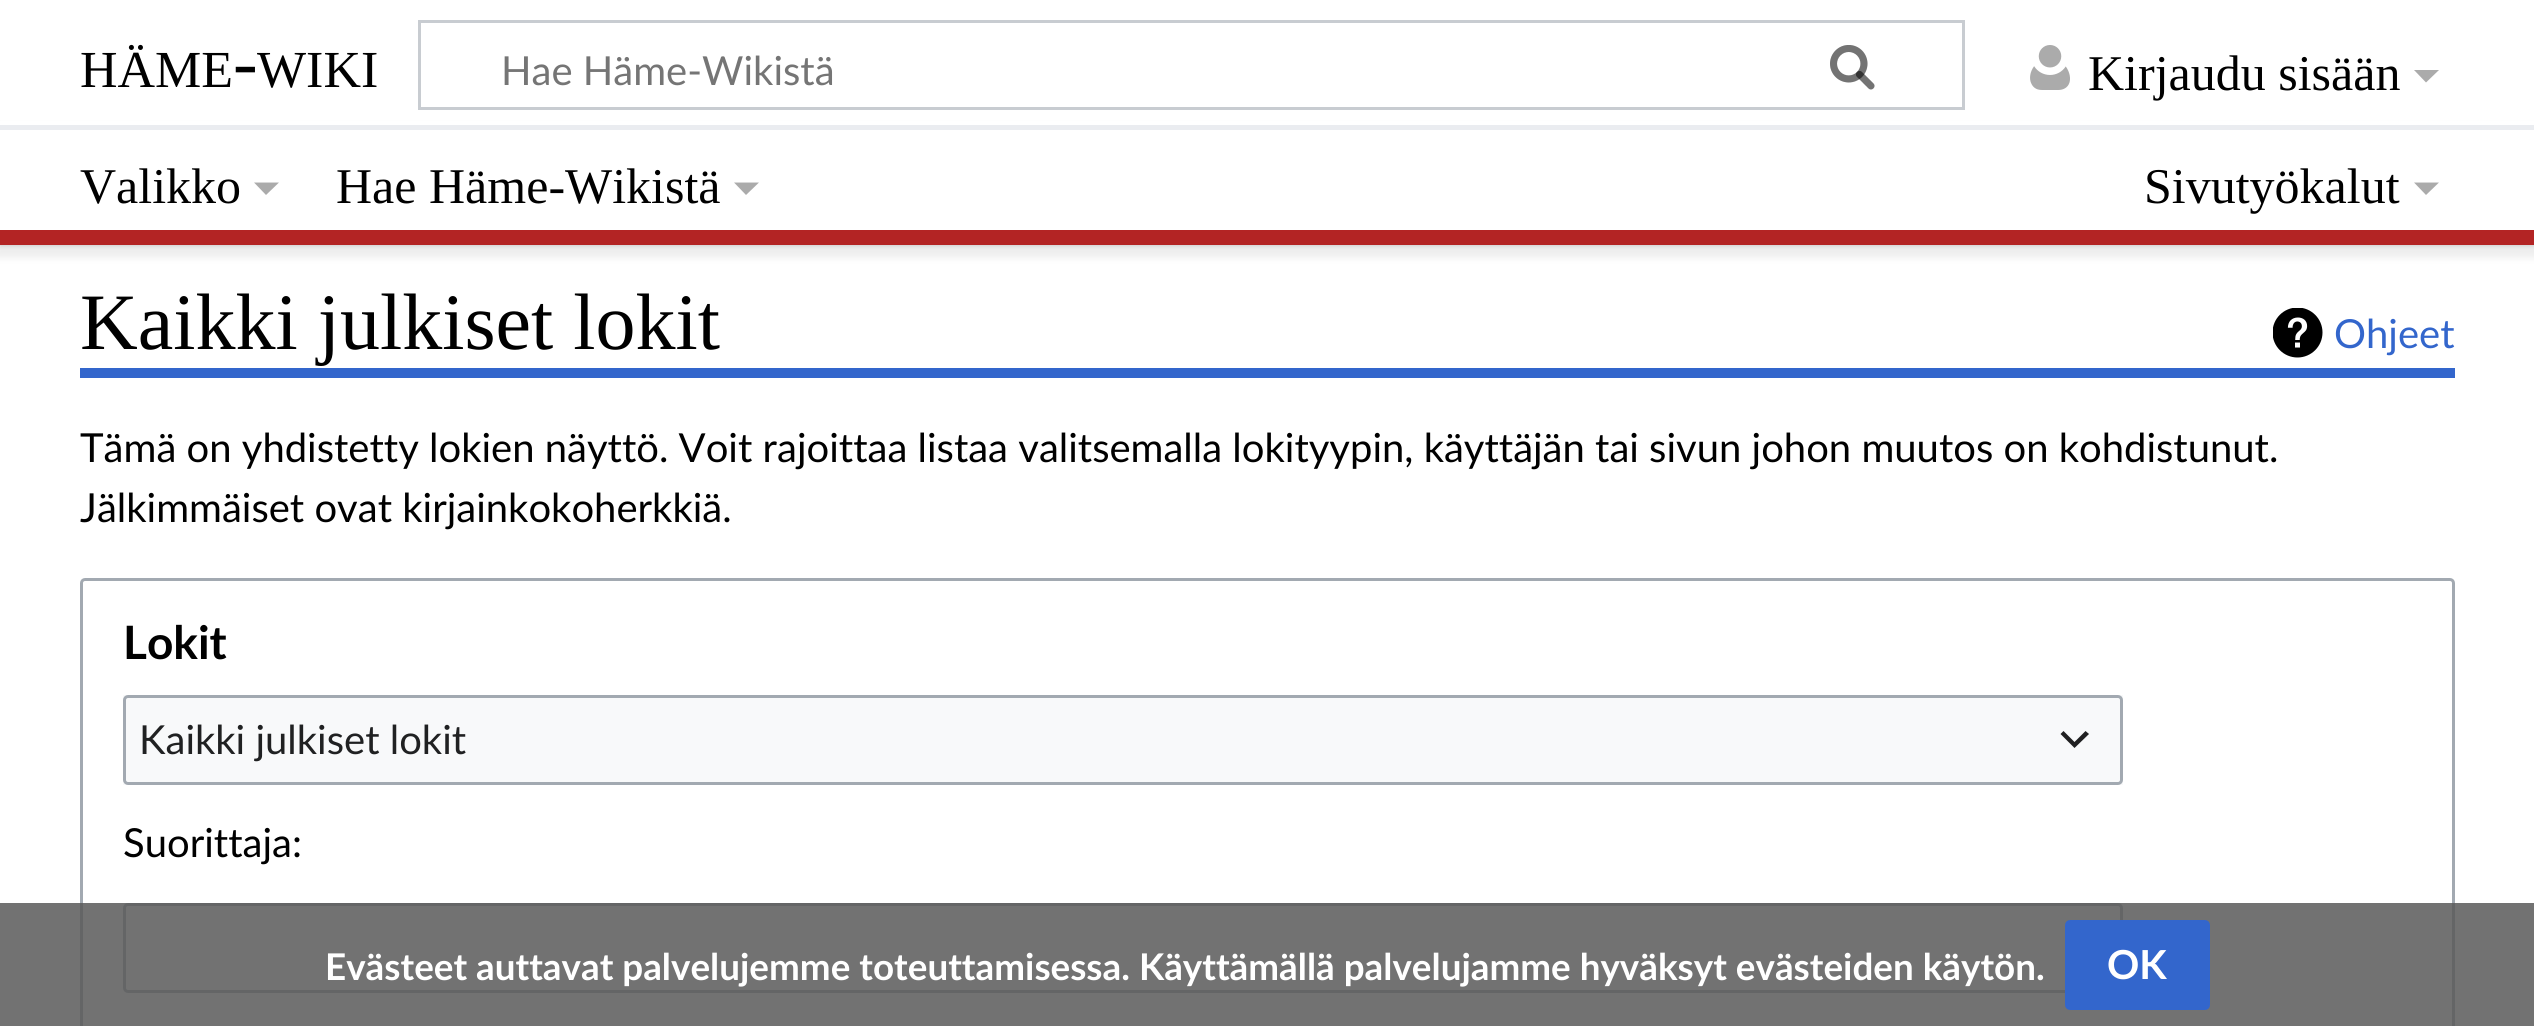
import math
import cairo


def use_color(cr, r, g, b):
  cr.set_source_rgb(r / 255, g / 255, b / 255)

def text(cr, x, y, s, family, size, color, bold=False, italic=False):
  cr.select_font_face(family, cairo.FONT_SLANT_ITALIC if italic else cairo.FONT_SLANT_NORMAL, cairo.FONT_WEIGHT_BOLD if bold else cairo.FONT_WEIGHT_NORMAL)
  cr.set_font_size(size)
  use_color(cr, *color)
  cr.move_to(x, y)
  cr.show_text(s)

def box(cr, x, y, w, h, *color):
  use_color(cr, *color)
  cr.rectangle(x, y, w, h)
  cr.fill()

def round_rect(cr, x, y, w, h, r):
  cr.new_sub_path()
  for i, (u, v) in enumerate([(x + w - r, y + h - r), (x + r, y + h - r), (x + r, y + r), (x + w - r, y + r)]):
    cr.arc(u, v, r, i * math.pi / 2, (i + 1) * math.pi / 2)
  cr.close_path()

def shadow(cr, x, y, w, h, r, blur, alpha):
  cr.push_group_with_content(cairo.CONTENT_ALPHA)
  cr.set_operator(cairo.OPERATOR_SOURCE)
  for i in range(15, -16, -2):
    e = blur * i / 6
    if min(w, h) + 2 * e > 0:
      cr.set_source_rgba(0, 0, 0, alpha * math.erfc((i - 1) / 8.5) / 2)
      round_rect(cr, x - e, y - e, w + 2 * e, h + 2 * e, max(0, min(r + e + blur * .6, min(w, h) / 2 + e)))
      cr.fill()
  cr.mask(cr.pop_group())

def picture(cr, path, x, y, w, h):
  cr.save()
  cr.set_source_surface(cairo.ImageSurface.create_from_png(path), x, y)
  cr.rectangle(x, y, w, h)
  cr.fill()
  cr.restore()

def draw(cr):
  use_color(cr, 255, 255, 255)
  cr.paint()
  use_color(cr, 0, 0, 0)
  shadow(cr, 0, 125, 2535, 120, 0, 2.5, 0.2)
  shadow(cr, -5, 128, 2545, 130, 0, 4, 0.07)
  box(cr, 0, 121, 2534, 4, 255, 255, 255)
  cr.rectangle(419.5, 21.5, 1544, 87)
  use_color(cr, 200, 204, 209)
  cr.set_line_width(3)
  cr.stroke()
  picture(cr, "img_01.png", 1830, 45, 45, 45)
  picture(cr, "img_02.png", 1830, 45, 45, 45)
  picture(cr, "img_03.png", 2030, 45, 40, 45)
  use_color(cr, 171, 171, 171)
  cr.new_path()
  cr.move_to(2439, 70)
  cr.line_to(2426, 82.5)
  cr.line_to(2414, 70)
  cr.close_path()
  cr.fill()
  box(cr, 0, 130, 2534, 100, 255, 255, 255)
  box(cr, 0, 125, 2534, 5, 234, 236, 240)
  box(cr, 0, 230, 2534, 15, 179, 36, 36)
  use_color(cr, 171, 171, 171)
  cr.new_path()
  cr.move_to(279, 182.5)
  cr.line_to(266, 195)
  cr.line_to(254, 182.5)
  cr.close_path()
  cr.fill()
  cr.new_path()
  cr.move_to(759, 182.5)
  cr.line_to(746, 195)
  cr.line_to(734, 182.5)
  cr.close_path()
  cr.fill()
  cr.new_path()
  cr.move_to(2439, 182.5)
  cr.line_to(2426, 195)
  cr.line_to(2414, 182.5)
  cr.close_path()
  cr.fill()
  box(cr, 80, 368, 2375, 10, 51, 102, 204)
  picture(cr, "img_04.png", 2273, 308, 50, 50)
  round_rect(cr, 81.5, 579.5, 2372, 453, 3.5)
  use_color(cr, 162, 169, 177)
  cr.stroke()
  box(cr, 123, 695, 2000, 90, 248, 249, 250)
  round_rect(cr, 124.5, 696.5, 1997, 87, 3.5)
  use_color(cr, 162, 169, 177)
  cr.stroke()
  use_color(cr, 32, 32, 33)
  cr.new_path()
  cr.move_to(2085.5, 731)
  cr.line_to(2074.5, 742)
  cr.line_to(2063.5, 731)
  cr.line_to(2060.5, 734)
  cr.line_to(2074.5, 748)
  cr.line_to(2089, 734)
  cr.close_path()
  cr.fill()
  round_rect(cr, 124.5, 904.5, 1997, 87, 3.5)
  use_color(cr, 162, 169, 177)
  cr.stroke()
  cr.set_source_rgba(0.353, 0.353, 0.353, 0.85)
  cr.rectangle(0, 903, 2534, 123)
  cr.fill()
  use_color(cr, 51, 102, 204)
  round_rect(cr, 2066.5, 921.5, 142, 87, 3.5)
  cr.fill_preserve()
  cr.stroke()
  text(cr, 80, 87, "HÄME", "Liberation Serif", 52, (0, 0, 0))
  text(cr, 233, 87, "-", "Liberation Serif", 74, (0, 0, 0))
  text(cr, 257, 87, "WIKI", "Liberation Serif", 52, (0, 0, 0))
  text(cr, 501, 85, "Hae Häme-Wikistä", "Lato", 40, (117, 117, 117))
  text(cr, 2088, 90, "Kirjaudu sisään", "Liberation Serif", 50, (0, 0, 0))
  text(cr, 80, 203, "Valikko", "Liberation Serif", 50, (0, 0, 0))
  text(cr, 336, 203, "Hae Häme-Wikistä", "Liberation Serif", 50, (0, 0, 0))
  text(cr, 2144, 203, "Sivutyökalut", "Liberation Serif", 50, (0, 0, 0))
  text(cr, 80, 349, "Kaikki julkiset lokit", "Liberation Serif", 80, (0, 0, 0))
  text(cr, 2334, 348, "Ohjeet", "Lato", 40, (51, 102, 204))
  text(cr, 80, 462, "Tämä on yhdistetty lokien näyttö. Voit rajoittaa listaa valitsemalla lokityypin, käyttäjän tai sivun johon muutos on kohdistunut.", "Lato", 40, (0, 0, 0))
  text(cr, 80, 522, "Jälkimmäiset ovat kirjainkokoherkkiä.", "Lato", 40, (0, 0, 0))
  text(cr, 123, 659, "Lokit", "Lato", 46, (0, 0, 0), bold=True)
  text(cr, 139, 754, "Kaikki julkiset lokit", "Lato", 40, (32, 33, 34))
  text(cr, 123, 857, "Suorittaja:", "Lato", 40, (0, 0, 0))
  text(cr, 325, 980, "Evästeet auttavat palvelujemme toteuttamisessa. Käyttämällä palvelujamme hyväksyt evästeiden käytön.", "Lato", 36.8, (255, 255, 255), bold=True)
  text(cr, 2107, 979, "OK", "Lato", 40, (255, 255, 255), bold=True)


surface = cairo.ImageSurface(cairo.FORMAT_RGB24, 2534, 1026)
cr = cairo.Context(surface)
options = cairo.FontOptions()
options.set_hint_metrics(cairo.HINT_METRICS_OFF)
options.set_hint_style(cairo.HINT_STYLE_NONE)
cr.set_font_options(options)
cr.set_miter_limit(4)
draw(cr)
surface.write_to_png("out.png")
